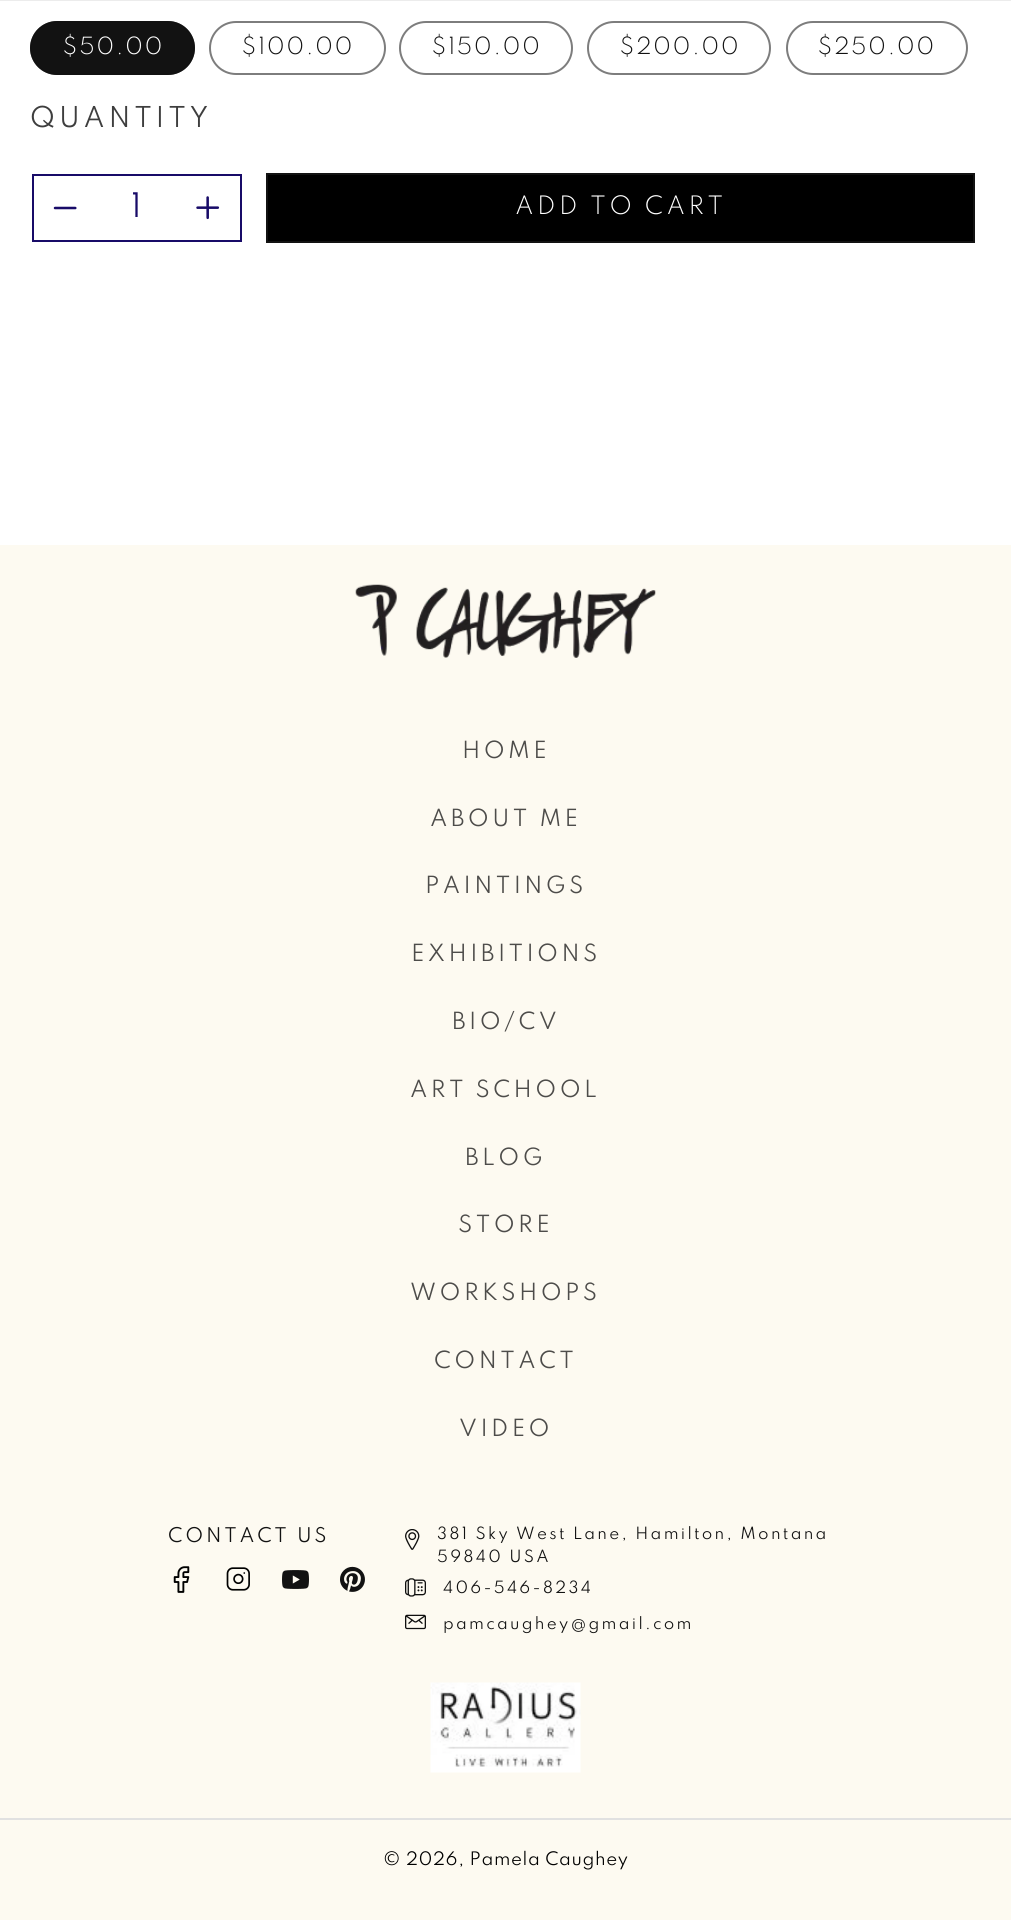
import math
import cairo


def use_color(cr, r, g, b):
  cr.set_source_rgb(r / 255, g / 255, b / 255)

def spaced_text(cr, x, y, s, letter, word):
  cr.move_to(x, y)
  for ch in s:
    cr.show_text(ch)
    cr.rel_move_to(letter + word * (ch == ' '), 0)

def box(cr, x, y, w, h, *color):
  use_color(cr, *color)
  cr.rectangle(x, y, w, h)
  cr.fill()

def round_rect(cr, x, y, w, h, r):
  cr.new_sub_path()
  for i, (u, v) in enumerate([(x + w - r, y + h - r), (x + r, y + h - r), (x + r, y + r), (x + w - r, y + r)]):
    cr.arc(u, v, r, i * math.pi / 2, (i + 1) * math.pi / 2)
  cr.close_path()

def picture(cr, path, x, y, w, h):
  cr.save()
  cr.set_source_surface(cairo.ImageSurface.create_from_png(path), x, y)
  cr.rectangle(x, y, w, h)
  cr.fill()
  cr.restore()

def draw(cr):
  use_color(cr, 255, 255, 255)
  cr.paint()
  box(cr, 0, 0, 1011, 1, 236, 236, 236)
  use_color(cr, 18, 18, 18)
  round_rect(cr, 30, 21, 165, 54, 27)
  cr.fill()
  round_rect(cr, 31, 22, 163, 52, 26)
  cr.set_source_rgba(0.071, 0.071, 0.071, 0.55)
  cr.stroke()
  round_rect(cr, 210, 22, 175, 52, 26)
  use_color(cr, 125, 125, 125)
  cr.stroke()
  round_rect(cr, 400, 22, 172, 52, 26)
  cr.stroke()
  round_rect(cr, 588, 22, 182, 52, 26)
  cr.stroke()
  round_rect(cr, 787, 22, 180, 52, 26)
  cr.stroke()
  picture(cr, "img_01.png", 53, 206, 24, 4)
  picture(cr, "img_02.png", 196, 196, 24, 24)
  cr.rectangle(33, 175, 208, 66)
  use_color(cr, 24, 11, 104)
  cr.stroke()
  box(cr, 268, 175, 705, 66, 0, 0, 0)
  cr.rectangle(267, 174, 707, 68)
  use_color(cr, 18, 18, 18)
  cr.stroke()
  box(cr, 0, 545, 1011, 1375, 253, 250, 241)
  picture(cr, "img_03.png", 355, 584, 301, 74)
  picture(cr, "img_04.png", 173, 1566, 17, 27)
  picture(cr, "img_05.png", 226, 1567, 24, 24)
  picture(cr, "img_06.png", 282, 1570, 27, 19)
  picture(cr, "img_07.png", 340, 1566, 25, 26)
  picture(cr, "img_08.png", 405, 1529, 15, 21)
  picture(cr, "img_09.png", 405, 1578, 21, 19)
  picture(cr, "img_10.png", 405, 1614, 21, 16)
  picture(cr, "img_11.png", 430, 1682, 151, 91)
  box(cr, 0, 1818, 1011, 2, 225, 225, 225)
  cr.select_font_face("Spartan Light")
  cr.set_font_size(21)
  use_color(cr, 255, 255, 255)
  spaced_text(cr, 62, 54, "$50.00", 1.5, 0)
  use_color(cr, 18, 18, 18)
  spaced_text(cr, 241, 54, "$100.00", 1.5, 0)
  spaced_text(cr, 431, 54, "$150.00", 1.5, 0)
  spaced_text(cr, 619, 54, "$200.00", 1.5, 0)
  spaced_text(cr, 817, 54, "$250.00", 1.5, 0)
  cr.select_font_face("Spartan")
  cr.set_font_size(25.5)
  use_color(cr, 62, 62, 62)
  spaced_text(cr, 30, 127, "QUANTITY", 3.75, 0)
  cr.set_font_size(30)
  use_color(cr, 24, 11, 104)
  spaced_text(cr, 131, 217, "1", 1, 0)
  cr.select_font_face("Spartan Light")
  cr.set_font_size(22.5)
  use_color(cr, 255, 255, 255)
  spaced_text(cr, 515, 214, "ADD TO CART", 3.4, 0)
  cr.select_font_face("Spartan")
  cr.set_font_size(21)
  use_color(cr, 77, 76, 74)
  spaced_text(cr, 462, 758, "HOME", 3.4, 0)
  spaced_text(cr, 430, 826, "ABOUT ME", 3.4, 0)
  spaced_text(cr, 425, 893, "PAINTINGS", 3.4, 0)
  spaced_text(cr, 411, 961, "EXHIBITIONS", 3.4, 0)
  spaced_text(cr, 452, 1029, "BIO/CV", 3.4, 0)
  spaced_text(cr, 410, 1097, "ART SCHOOL", 3.4, 0)
  spaced_text(cr, 465, 1165, "BLOG", 3.4, 0)
  spaced_text(cr, 458, 1232, "STORE", 3.4, 0)
  spaced_text(cr, 410, 1300, "WORKSHOPS", 3.4, 0)
  spaced_text(cr, 434, 1368, "CONTACT", 3.4, 0)
  spaced_text(cr, 459, 1436, "VIDEO", 3.4, 0)
  cr.set_font_size(18)
  use_color(cr, 18, 18, 18)
  spaced_text(cr, 168, 1542, "CONTACT US", 2.75, 0)
  cr.set_font_size(15)
  spaced_text(cr, 437, 1539, "381 Sky West Lane, Hamilton, Montana", 2.25, 0)
  spaced_text(cr, 437, 1562, "59840 USA", 2.25, 0)
  spaced_text(cr, 443, 1593, "406-546-8234", 2.25, 0)
  spaced_text(cr, 443, 1629, "pamcaughey@gmail.com", 2.25, 0)
  cr.set_font_size(16.5)
  use_color(cr, 0, 0, 0)
  spaced_text(cr, 383, 1865, "© 2026, Pamela Caughey", 0.6, 0)


surface = cairo.ImageSurface(cairo.FORMAT_RGB24, 1011, 1920)
cr = cairo.Context(surface)
options = cairo.FontOptions()
options.set_hint_metrics(cairo.HINT_METRICS_OFF)
options.set_hint_style(cairo.HINT_STYLE_NONE)
cr.set_font_options(options)
cr.set_miter_limit(4)
draw(cr)
surface.write_to_png("out.png")
